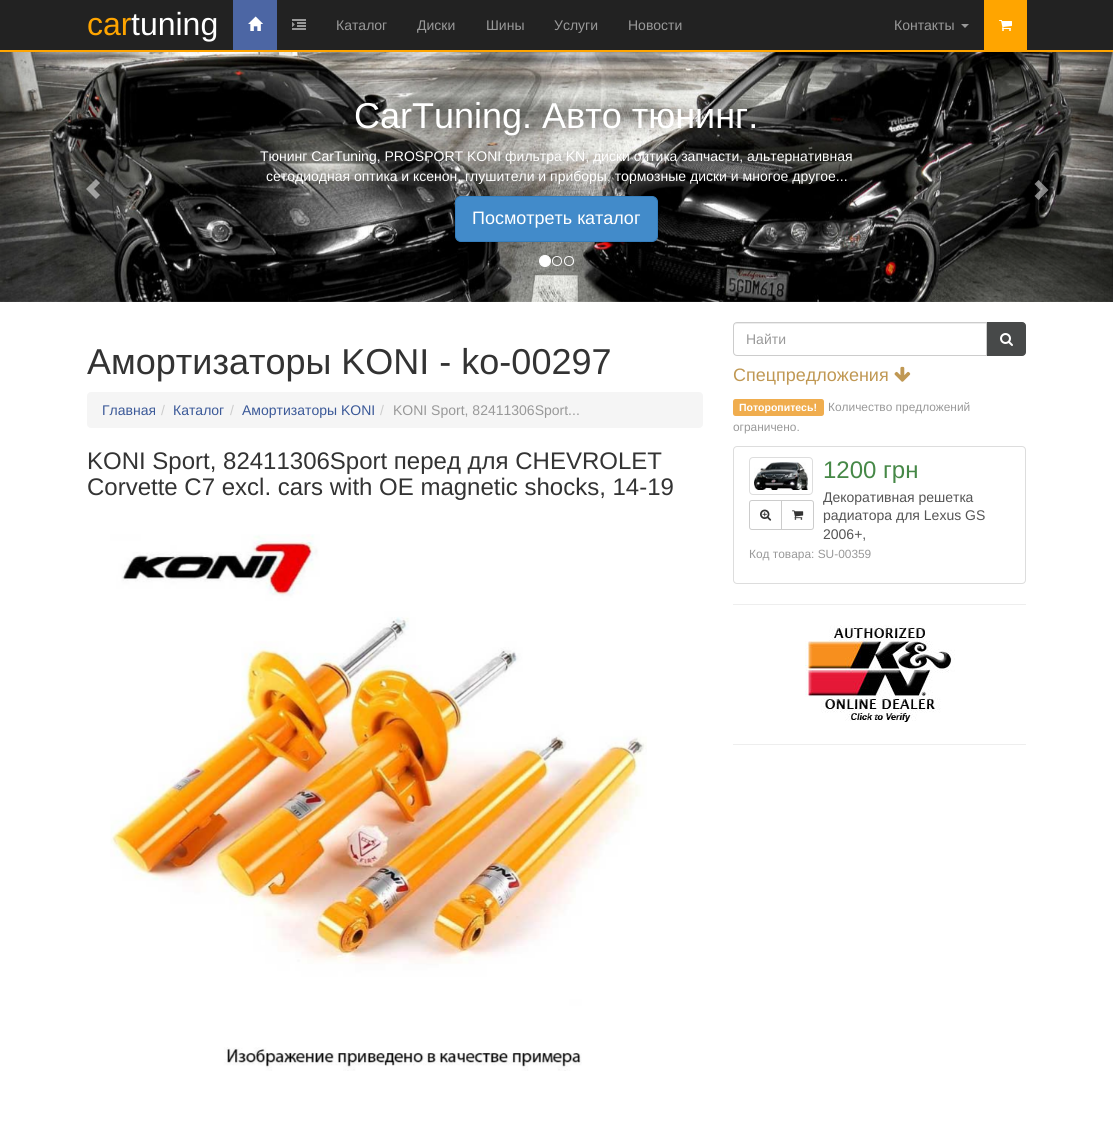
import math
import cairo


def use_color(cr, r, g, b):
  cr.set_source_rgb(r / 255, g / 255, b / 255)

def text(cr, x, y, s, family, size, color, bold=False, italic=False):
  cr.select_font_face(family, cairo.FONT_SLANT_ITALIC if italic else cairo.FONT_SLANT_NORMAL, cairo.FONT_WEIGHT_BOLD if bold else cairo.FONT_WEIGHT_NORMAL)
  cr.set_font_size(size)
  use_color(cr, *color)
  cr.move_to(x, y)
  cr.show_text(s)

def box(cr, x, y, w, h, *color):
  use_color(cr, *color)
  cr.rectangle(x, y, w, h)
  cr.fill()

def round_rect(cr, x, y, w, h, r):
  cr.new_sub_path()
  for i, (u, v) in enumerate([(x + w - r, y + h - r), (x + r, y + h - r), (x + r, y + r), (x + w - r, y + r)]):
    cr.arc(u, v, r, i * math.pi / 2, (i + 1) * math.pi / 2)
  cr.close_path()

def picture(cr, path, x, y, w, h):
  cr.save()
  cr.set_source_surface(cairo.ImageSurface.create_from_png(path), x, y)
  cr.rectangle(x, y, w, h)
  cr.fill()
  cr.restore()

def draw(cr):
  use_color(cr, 255, 255, 255)
  cr.paint()
  box(cr, 0, 0, 1113, 50, 34, 34, 34)
  box(cr, 0, 50, 1113, 2, 255, 165, 0)
  box(cr, 233, 0, 44, 50, 76, 102, 164)
  picture(cr, "img_01.png", 248, 16, 15, 15)
  picture(cr, "img_02.png", 292, 19, 14, 11)
  use_color(cr, 153, 153, 153)
  cr.new_path()
  cr.move_to(961, 24)
  cr.line_to(969, 24)
  cr.line_to(965, 28)
  cr.close_path()
  cr.fill()
  box(cr, 984, 0, 43, 50, 255, 165, 0)
  picture(cr, "img_03.png", 999, 20, 13, 11)
  picture(cr, "img_04.png", 0, 52, 1113, 250)
  gradient = cairo.LinearGradient(0, 177, 167, 177)
  gradient.add_color_stop_rgba(0, 0, 0, 0, 0.25)
  gradient.add_color_stop_rgba(1, 0, 0, 0, 0)
  cr.set_source(gradient)
  cr.rectangle(0, 52, 153, 250)
  cr.fill()
  cr.set_source_rgba(1, 1, 1, 0.5)
  cr.new_path()
  cr.move_to(96, 199)
  cr.line_to(100, 195)
  cr.line_to(94, 189)
  cr.line_to(100, 183)
  cr.line_to(96, 179)
  cr.line_to(86, 189)
  cr.close_path()
  cr.fill()
  use_color(cr, 66, 139, 202)
  round_rect(cr, 455.5, 196.5, 202, 45, 5.5)
  cr.fill_preserve()
  use_color(cr, 53, 126, 189)
  cr.set_line_width(1)
  cr.stroke()
  gradient = cairo.LinearGradient(946, 177, 1113, 177)
  gradient.add_color_stop_rgba(0, 0, 0, 0, 0)
  gradient.add_color_stop_rgba(1, 0, 0, 0, 0.25)
  cr.set_source(gradient)
  cr.rectangle(960, 52, 153, 250)
  cr.fill()
  cr.set_source_rgba(1, 1, 1, 0.5)
  cr.new_path()
  cr.move_to(1038.5, 200)
  cr.line_to(1034.5, 196)
  cr.line_to(1040.5, 190)
  cr.line_to(1034.5, 184)
  cr.line_to(1038.5, 180)
  cr.line_to(1048.5, 190)
  cr.close_path()
  cr.fill()
  use_color(cr, 255, 255, 255)
  cr.arc(545, 261, 5.5, 0, 2 * math.pi)
  cr.fill_preserve()
  cr.stroke()
  cr.arc(557, 261, 4.5, 0, 2 * math.pi)
  cr.stroke()
  cr.arc(569, 261, 4.5, 0, 2 * math.pi)
  cr.stroke()
  use_color(cr, 245, 245, 245)
  round_rect(cr, 87, 392, 616, 36, 4)
  cr.fill()
  picture(cr, "img_05.png", 110, 534, 537, 537)
  use_color(cr, 236, 236, 236)
  cr.new_path()
  cr.move_to(737, 324)
  cr.line_to(986, 324)
  cr.line_to(986, 323)
  cr.line_to(737, 323)
  cr.curve_to(735, 323, 734, 325, 734, 327)
  cr.curve_to(734, 325, 735, 324, 737, 324)
  cr.close_path()
  cr.fill()
  cr.new_path()
  cr.move_to(737, 322.5)
  cr.line_to(986.5, 322.5)
  cr.line_to(986.5, 355.5)
  cr.line_to(737, 355.5)
  cr.curve_to(735, 355.5, 733.5, 354, 733.5, 352)
  cr.line_to(733.5, 326)
  cr.curve_to(733.5, 324, 735, 322.5, 737, 322.5)
  cr.close_path()
  use_color(cr, 204, 204, 204)
  cr.stroke()
  use_color(cr, 71, 73, 73)
  cr.new_path()
  cr.move_to(987.5, 322.5)
  cr.line_to(1022, 322.5)
  cr.curve_to(1024, 322.5, 1025.5, 324, 1025.5, 326)
  cr.line_to(1025.5, 352)
  cr.curve_to(1025.5, 354, 1024, 355.5, 1022, 355.5)
  cr.line_to(987.5, 355.5)
  cr.close_path()
  cr.fill_preserve()
  cr.stroke()
  picture(cr, "img_06.png", 1000, 333, 13, 13)
  picture(cr, "img_07.png", 894, 366, 17, 16)
  use_color(cr, 240, 173, 78)
  round_rect(cr, 733, 399, 91, 17, 2.5)
  cr.fill()
  round_rect(cr, 733.5, 446.5, 292, 137, 3.5)
  use_color(cr, 221, 221, 221)
  cr.stroke()
  round_rect(cr, 749.5, 457.5, 63, 37, 3.5)
  cr.stroke()
  picture(cr, "img_08.png", 754, 462, 54, 28)
  cr.new_path()
  cr.move_to(752, 500.5)
  cr.line_to(781.5, 500.5)
  cr.line_to(781.5, 529.5)
  cr.line_to(752, 529.5)
  cr.curve_to(750.5, 529.5, 749.5, 528.5, 749.5, 527)
  cr.line_to(749.5, 503)
  cr.curve_to(749.5, 501.5, 750.5, 500.5, 752, 500.5)
  cr.close_path()
  use_color(cr, 204, 204, 204)
  cr.stroke()
  picture(cr, "img_09.png", 760, 509, 12, 12)
  use_color(cr, 255, 255, 255)
  cr.new_path()
  cr.move_to(781.5, 500.5)
  cr.line_to(811, 500.5)
  cr.curve_to(812.5, 500.5, 813.5, 501.5, 813.5, 503)
  cr.line_to(813.5, 527)
  cr.curve_to(813.5, 528.5, 812.5, 529.5, 811, 529.5)
  cr.line_to(781.5, 529.5)
  cr.close_path()
  cr.fill_preserve()
  use_color(cr, 204, 204, 204)
  cr.stroke()
  picture(cr, "img_10.png", 792, 510, 12, 10)
  box(cr, 733, 604, 293, 1, 238, 238, 238)
  picture(cr, "img_11.png", 805, 625, 150, 97)
  box(cr, 733, 744, 293, 1, 238, 238, 238)
  text(cr, 87, 35, "car", "Liberation Sans", 32, (255, 165, 0))
  text(cr, 131, 35, "tuning", "Liberation Sans", 32, (255, 255, 255))
  text(cr, 336, 30, "Каталог", "Liberation Sans", 14, (153, 153, 153))
  text(cr, 417, 30, "Диски", "Liberation Sans", 14, (153, 153, 153))
  text(cr, 486, 30, "Шины", "Liberation Sans", 14, (153, 153, 153))
  text(cr, 554, 30, "Услуги", "Liberation Sans", 14, (153, 153, 153))
  text(cr, 628, 30, "Новости", "Liberation Sans", 14, (153, 153, 153))
  text(cr, 894, 30, "Контакты", "Liberation Sans", 14, (153, 153, 153))
  text(cr, 354, 128, "CarTuning. Авто тюнинг.", "Liberation Sans", 36, (255, 255, 255))
  text(cr, 260, 161, "Тюнинг CarTuning, PROSPORT KONI фильтра KN, диски оптика запчасти, альтернативная", "Liberation Sans", 14, (255, 255, 255))
  text(cr, 266, 181, "сетодиодная оптика и ксенон, глушители и приборы, тормозные диски и многое другое...", "Liberation Sans", 14, (255, 255, 255))
  text(cr, 472, 224, "Посмотреть каталог", "Liberation Sans", 18, (255, 255, 255))
  text(cr, 87, 374, "Амортизаторы KONI - ko-00297", "Liberation Sans", 36, (51, 51, 51))
  text(cr, 102, 415, "Главная", "Liberation Sans", 14, (59, 89, 152))
  text(cr, 161, 415, "/", "Liberation Sans", 14, (204, 204, 204))
  text(cr, 173, 415, "Каталог", "Liberation Sans", 14, (59, 89, 152))
  text(cr, 230, 415, "/", "Liberation Sans", 14, (204, 204, 204))
  text(cr, 242, 415, "Амортизаторы KONI", "Liberation Sans", 14, (59, 89, 152))
  text(cr, 380, 415, "/", "Liberation Sans", 14, (204, 204, 204))
  text(cr, 393, 415, "KONI Sport, 82411306Sport...", "Liberation Sans", 14, (153, 153, 153))
  text(cr, 87, 469, "KONI Sport, 82411306Sport перед для CHEVROLET", "Liberation Sans", 24, (51, 51, 51))
  text(cr, 87, 495, "Corvette C7 excl. cars with OE magnetic shocks, 14-19", "Liberation Sans", 24, (51, 51, 51))
  text(cr, 746, 344, "Найти", "Liberation Sans", 14, (153, 153, 153))
  text(cr, 733, 381, "Спецпредложения", "Liberation Sans", 18, (192, 152, 83))
  text(cr, 739, 411, "Поторопитесь!", "Liberation Sans", 10.5, (255, 255, 255), bold=True)
  text(cr, 828, 411, "Количество предложений", "Liberation Sans", 11.9, (153, 153, 153))
  text(cr, 733, 431, "ограничено.", "Liberation Sans", 11.9, (153, 153, 153))
  text(cr, 823, 478, "1200 грн", "Liberation Sans", 24, (70, 136, 71))
  text(cr, 823, 502, "Декоративная решетка", "Liberation Sans", 14, (85, 85, 85))
  text(cr, 823, 520, "радиатора для Lexus GS", "Liberation Sans", 14, (85, 85, 85))
  text(cr, 823, 539, "2006+,", "Liberation Sans", 14, (85, 85, 85))
  text(cr, 749, 558, "Код товара: SU-00359", "Liberation Sans", 11.9, (153, 153, 153))


surface = cairo.ImageSurface(cairo.FORMAT_RGB24, 1113, 1148)
cr = cairo.Context(surface)
options = cairo.FontOptions()
options.set_hint_metrics(cairo.HINT_METRICS_OFF)
options.set_hint_style(cairo.HINT_STYLE_NONE)
cr.set_font_options(options)
cr.set_miter_limit(4)
draw(cr)
surface.write_to_png("out.png")
